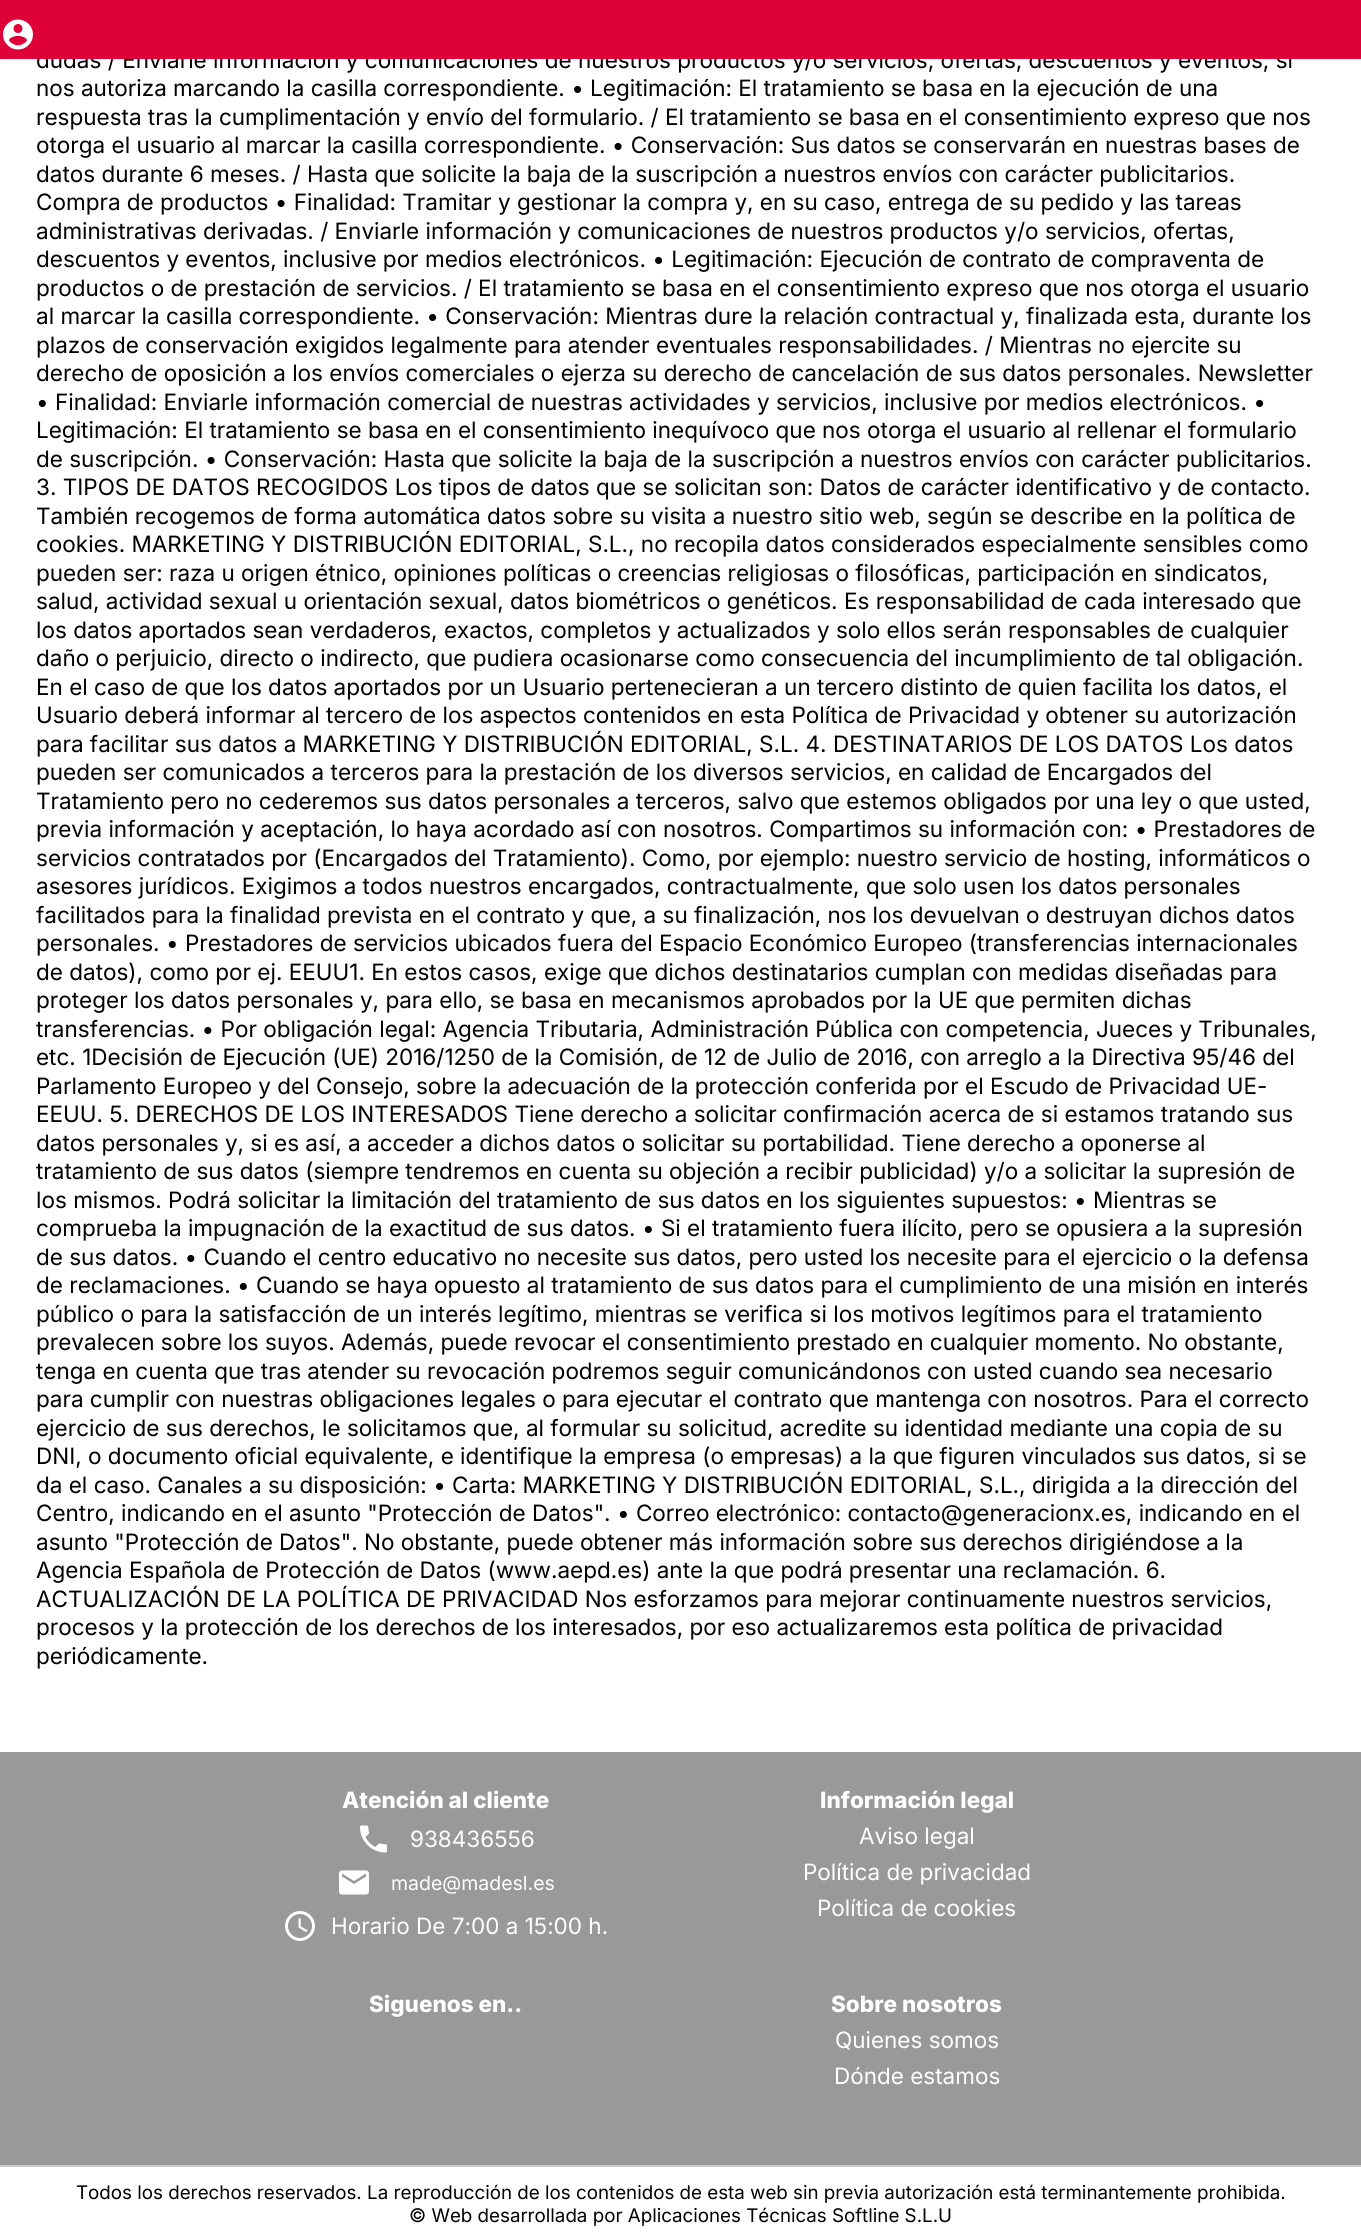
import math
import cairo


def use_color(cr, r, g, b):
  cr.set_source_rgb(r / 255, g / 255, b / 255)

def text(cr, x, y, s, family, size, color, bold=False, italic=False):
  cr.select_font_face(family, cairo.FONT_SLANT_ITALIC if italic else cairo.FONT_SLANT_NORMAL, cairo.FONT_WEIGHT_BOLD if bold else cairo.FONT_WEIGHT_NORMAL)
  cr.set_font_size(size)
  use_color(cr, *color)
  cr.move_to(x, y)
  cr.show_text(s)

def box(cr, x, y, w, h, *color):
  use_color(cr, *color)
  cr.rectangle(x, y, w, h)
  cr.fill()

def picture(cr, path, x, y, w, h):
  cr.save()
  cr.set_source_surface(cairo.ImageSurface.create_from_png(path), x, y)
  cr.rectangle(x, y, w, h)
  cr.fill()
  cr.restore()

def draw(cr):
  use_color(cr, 255, 255, 255)
  cr.paint()
  box(cr, 0, 1752, 1361, 413, 153, 153, 153)
  picture(cr, "img_02.png", 360, 1825, 27, 28)
  picture(cr, "img_03.png", 339, 1870, 30, 25)
  picture(cr, "img_04.png", 285, 1911, 30, 30)
  box(cr, 0, 2165, 1361, 2, 204, 204, 204)
  text(cr, 36, 68, "dudas / Enviarle información y comunicaciones de nuestros productos y/o servicios, ofertas, descuentos y eventos, si", "Inter", 22.5, (0, 0, 0))
  box(cr, 0, 0, 1361, 59, 223, 1, 58)
  picture(cr, "img_01.png", 3, 19, 30, 31)
  text(cr, 36, 96, "nos autoriza marcando la casilla correspondiente. • Legitimación: El tratamiento se basa en la ejecución de una", "Inter", 22.5, (0, 0, 0))
  text(cr, 36, 125, "respuesta tras la cumplimentación y envío del formulario. / El tratamiento se basa en el consentimiento expreso que nos", "Inter", 22.5, (0, 0, 0))
  text(cr, 36, 153, "otorga el usuario al marcar la casilla correspondiente. • Conservación: Sus datos se conservarán en nuestras bases de", "Inter", 22.5, (0, 0, 0))
  text(cr, 36, 182, "datos durante 6 meses. / Hasta que solicite la baja de la suscripción a nuestros envíos con carácter publicitarios.", "Inter", 22.5, (0, 0, 0))
  text(cr, 36, 210, "Compra de productos • Finalidad: Tramitar y gestionar la compra y, en su caso, entrega de su pedido y las tareas", "Inter", 22.5, (0, 0, 0))
  text(cr, 36, 239, "administrativas derivadas. / Enviarle información y comunicaciones de nuestros productos y/o servicios, ofertas,", "Inter", 22.5, (0, 0, 0))
  text(cr, 36, 267, "descuentos y eventos, inclusive por medios electrónicos. • Legitimación: Ejecución de contrato de compraventa de", "Inter", 22.5, (0, 0, 0))
  text(cr, 36, 296, "productos o de prestación de servicios. / El tratamiento se basa en el consentimiento expreso que nos otorga el usuario", "Inter", 22.5, (0, 0, 0))
  text(cr, 36, 324, "al marcar la casilla correspondiente. • Conservación: Mientras dure la relación contractual y, finalizada esta, durante los", "Inter", 22.5, (0, 0, 0))
  text(cr, 36, 353, "plazos de conservación exigidos legalmente para atender eventuales responsabilidades. / Mientras no ejercite su", "Inter", 22.5, (0, 0, 0))
  text(cr, 36, 381, "derecho de oposición a los envíos comerciales o ejerza su derecho de cancelación de sus datos personales. Newsletter", "Inter", 22.5, (0, 0, 0))
  text(cr, 36, 410, "• Finalidad: Enviarle información comercial de nuestras actividades y servicios, inclusive por medios electrónicos. •", "Inter", 22.5, (0, 0, 0))
  text(cr, 36, 438, "Legitimación: El tratamiento se basa en el consentimiento inequívoco que nos otorga el usuario al rellenar el formulario", "Inter", 22.5, (0, 0, 0))
  text(cr, 36, 467, "de suscripción. • Conservación: Hasta que solicite la baja de la suscripción a nuestros envíos con carácter publicitarios.", "Inter", 22.5, (0, 0, 0))
  text(cr, 36, 495, "3. TIPOS DE DATOS RECOGIDOS Los tipos de datos que se solicitan son: Datos de carácter identificativo y de contacto.", "Inter", 22.5, (0, 0, 0))
  text(cr, 36, 524, "También recogemos de forma automática datos sobre su visita a nuestro sitio web, según se describe en la política de", "Inter", 22.5, (0, 0, 0))
  text(cr, 36, 552, "cookies. MARKETING Y DISTRIBUCIÓN EDITORIAL, S.L., no recopila datos considerados especialmente sensibles como", "Inter", 22.5, (0, 0, 0))
  text(cr, 36, 581, "pueden ser: raza u origen étnico, opiniones políticas o creencias religiosas o filosóficas, participación en sindicatos,", "Inter", 22.5, (0, 0, 0))
  text(cr, 36, 609, "salud, actividad sexual u orientación sexual, datos biométricos o genéticos. Es responsabilidad de cada interesado que", "Inter", 22.5, (0, 0, 0))
  text(cr, 36, 638, "los datos aportados sean verdaderos, exactos, completos y actualizados y solo ellos serán responsables de cualquier", "Inter", 22.5, (0, 0, 0))
  text(cr, 36, 666, "daño o perjuicio, directo o indirecto, que pudiera ocasionarse como consecuencia del incumplimiento de tal obligación.", "Inter", 22.5, (0, 0, 0))
  text(cr, 36, 695, "En el caso de que los datos aportados por un Usuario pertenecieran a un tercero distinto de quien facilita los datos, el", "Inter", 22.5, (0, 0, 0))
  text(cr, 36, 723, "Usuario deberá informar al tercero de los aspectos contenidos en esta Política de Privacidad y obtener su autorización", "Inter", 22.5, (0, 0, 0))
  text(cr, 36, 752, "para facilitar sus datos a MARKETING Y DISTRIBUCIÓN EDITORIAL, S.L. 4. DESTINATARIOS DE LOS DATOS Los datos", "Inter", 22.5, (0, 0, 0))
  text(cr, 36, 780, "pueden ser comunicados a terceros para la prestación de los diversos servicios, en calidad de Encargados del", "Inter", 22.5, (0, 0, 0))
  text(cr, 36, 809, "Tratamiento pero no cederemos sus datos personales a terceros, salvo que estemos obligados por una ley o que usted,", "Inter", 22.5, (0, 0, 0))
  text(cr, 36, 837, "previa información y aceptación, lo haya acordado así con nosotros. Compartimos su información con: • Prestadores de", "Inter", 22.5, (0, 0, 0))
  text(cr, 36, 866, "servicios contratados por (Encargados del Tratamiento). Como, por ejemplo: nuestro servicio de hosting, informáticos o", "Inter", 22.5, (0, 0, 0))
  text(cr, 36, 894, "asesores jurídicos. Exigimos a todos nuestros encargados, contractualmente, que solo usen los datos personales", "Inter", 22.5, (0, 0, 0))
  text(cr, 36, 923, "facilitados para la finalidad prevista en el contrato y que, a su finalización, nos los devuelvan o destruyan dichos datos", "Inter", 22.5, (0, 0, 0))
  text(cr, 36, 951, "personales. • Prestadores de servicios ubicados fuera del Espacio Económico Europeo (transferencias internacionales", "Inter", 22.5, (0, 0, 0))
  text(cr, 36, 980, "de datos), como por ej. EEUU1. En estos casos, exige que dichos destinatarios cumplan con medidas diseñadas para", "Inter", 22.5, (0, 0, 0))
  text(cr, 36, 1008, "proteger los datos personales y, para ello, se basa en mecanismos aprobados por la UE que permiten dichas", "Inter", 22.5, (0, 0, 0))
  text(cr, 36, 1037, "transferencias. • Por obligación legal: Agencia Tributaria, Administración Pública con competencia, Jueces y Tribunales,", "Inter", 22.5, (0, 0, 0))
  text(cr, 36, 1065, "etc. 1Decisión de Ejecución (UE) 2016/1250 de la Comisión, de 12 de Julio de 2016, con arreglo a la Directiva 95/46 del", "Inter", 22.5, (0, 0, 0))
  text(cr, 36, 1094, "Parlamento Europeo y del Consejo, sobre la adecuación de la protección conferida por el Escudo de Privacidad UE-", "Inter", 22.5, (0, 0, 0))
  text(cr, 36, 1122, "EEUU. 5. DERECHOS DE LOS INTERESADOS Tiene derecho a solicitar confirmación acerca de si estamos tratando sus", "Inter", 22.5, (0, 0, 0))
  text(cr, 36, 1151, "datos personales y, si es así, a acceder a dichos datos o solicitar su portabilidad. Tiene derecho a oponerse al", "Inter", 22.5, (0, 0, 0))
  text(cr, 36, 1179, "tratamiento de sus datos (siempre tendremos en cuenta su objeción a recibir publicidad) y/o a solicitar la supresión de", "Inter", 22.5, (0, 0, 0))
  text(cr, 36, 1208, "los mismos. Podrá solicitar la limitación del tratamiento de sus datos en los siguientes supuestos: • Mientras se", "Inter", 22.5, (0, 0, 0))
  text(cr, 36, 1236, "comprueba la impugnación de la exactitud de sus datos. • Si el tratamiento fuera ilícito, pero se opusiera a la supresión", "Inter", 22.5, (0, 0, 0))
  text(cr, 36, 1265, "de sus datos. • Cuando el centro educativo no necesite sus datos, pero usted los necesite para el ejercicio o la defensa", "Inter", 22.5, (0, 0, 0))
  text(cr, 36, 1293, "de reclamaciones. • Cuando se haya opuesto al tratamiento de sus datos para el cumplimiento de una misión en interés", "Inter", 22.5, (0, 0, 0))
  text(cr, 36, 1322, "público o para la satisfacción de un interés legítimo, mientras se verifica si los motivos legítimos para el tratamiento", "Inter", 22.5, (0, 0, 0))
  text(cr, 36, 1350, "prevalecen sobre los suyos. Además, puede revocar el consentimiento prestado en cualquier momento. No obstante,", "Inter", 22.5, (0, 0, 0))
  text(cr, 36, 1379, "tenga en cuenta que tras atender su revocación podremos seguir comunicándonos con usted cuando sea necesario", "Inter", 22.5, (0, 0, 0))
  text(cr, 36, 1407, "para cumplir con nuestras obligaciones legales o para ejecutar el contrato que mantenga con nosotros. Para el correcto", "Inter", 22.5, (0, 0, 0))
  text(cr, 36, 1436, "ejercicio de sus derechos, le solicitamos que, al formular su solicitud, acredite su identidad mediante una copia de su", "Inter", 22.5, (0, 0, 0))
  text(cr, 36, 1464, "DNI, o documento oficial equivalente, e identifique la empresa (o empresas) a la que figuren vinculados sus datos, si se", "Inter", 22.5, (0, 0, 0))
  text(cr, 36, 1493, "da el caso. Canales a su disposición: • Carta: MARKETING Y DISTRIBUCIÓN EDITORIAL, S.L., dirigida a la dirección del", "Inter", 22.5, (0, 0, 0))
  text(cr, 36, 1521, "Centro, indicando en el asunto \"Protección de Datos\". • Correo electrónico: contacto@generacionx.es, indicando en el", "Inter", 22.5, (0, 0, 0))
  text(cr, 36, 1550, "asunto \"Protección de Datos\". No obstante, puede obtener más información sobre sus derechos dirigiéndose a la", "Inter", 22.5, (0, 0, 0))
  text(cr, 36, 1578, "Agencia Española de Protección de Datos (www.aepd.es) ante la que podrá presentar una reclamación. 6.", "Inter", 22.5, (0, 0, 0))
  text(cr, 36, 1607, "ACTUALIZACIÓN DE LA POLÍTICA DE PRIVACIDAD Nos esforzamos para mejorar continuamente nuestros servicios,", "Inter", 22.5, (0, 0, 0))
  text(cr, 36, 1635, "procesos y la protección de los derechos de los interesados, por eso actualizaremos esta política de privacidad", "Inter", 22.5, (0, 0, 0))
  text(cr, 36, 1664, "periódicamente.", "Inter", 22.5, (0, 0, 0))
  text(cr, 342, 1808, "Atención al cliente", "Inter ExtraBold", 22.5, (255, 255, 255))
  text(cr, 410, 1847, "938436556", "Inter", 22.5, (255, 255, 255))
  text(cr, 391, 1890, "made@madesl.es", "Inter", 19.5, (255, 255, 255))
  text(cr, 331, 1934, "Horario De 7:00 a 15:00 h.", "Inter", 22.5, (255, 255, 255))
  text(cr, 820, 1808, "Información legal", "Inter ExtraBold", 22.5, (255, 255, 255))
  text(cr, 859, 1844, "Aviso legal", "Inter", 22.5, (255, 255, 255))
  text(cr, 803, 1880, "Política de privacidad", "Inter", 22.5, (255, 255, 255))
  text(cr, 817, 1916, "Política de cookies", "Inter", 22.5, (255, 255, 255))
  text(cr, 369, 2012, "Siguenos en..", "Inter ExtraBold", 22.5, (255, 255, 255))
  text(cr, 831, 2012, "Sobre nosotros", "Inter ExtraBold", 22.5, (255, 255, 255))
  text(cr, 835, 2048, "Quienes somos", "Inter", 22.5, (255, 255, 255))
  text(cr, 834, 2084, "Dónde estamos", "Inter", 22.5, (255, 255, 255))
  text(cr, 76, 2199, "Todos los derechos reservados. La reproducción de los contenidos de esta web sin previa autorización está terminantemente prohibida.", "Inter", 18.75, (0, 0, 0))
  text(cr, 409, 2222, "© Web desarrollada por Aplicaciones Técnicas Softline S.L.U", "Inter", 18.75, (0, 0, 0))


surface = cairo.ImageSurface(cairo.FORMAT_RGB24, 1361, 2240)
cr = cairo.Context(surface)
options = cairo.FontOptions()
options.set_hint_metrics(cairo.HINT_METRICS_OFF)
options.set_hint_style(cairo.HINT_STYLE_NONE)
cr.set_font_options(options)
cr.set_miter_limit(4)
draw(cr)
surface.write_to_png("out.png")
